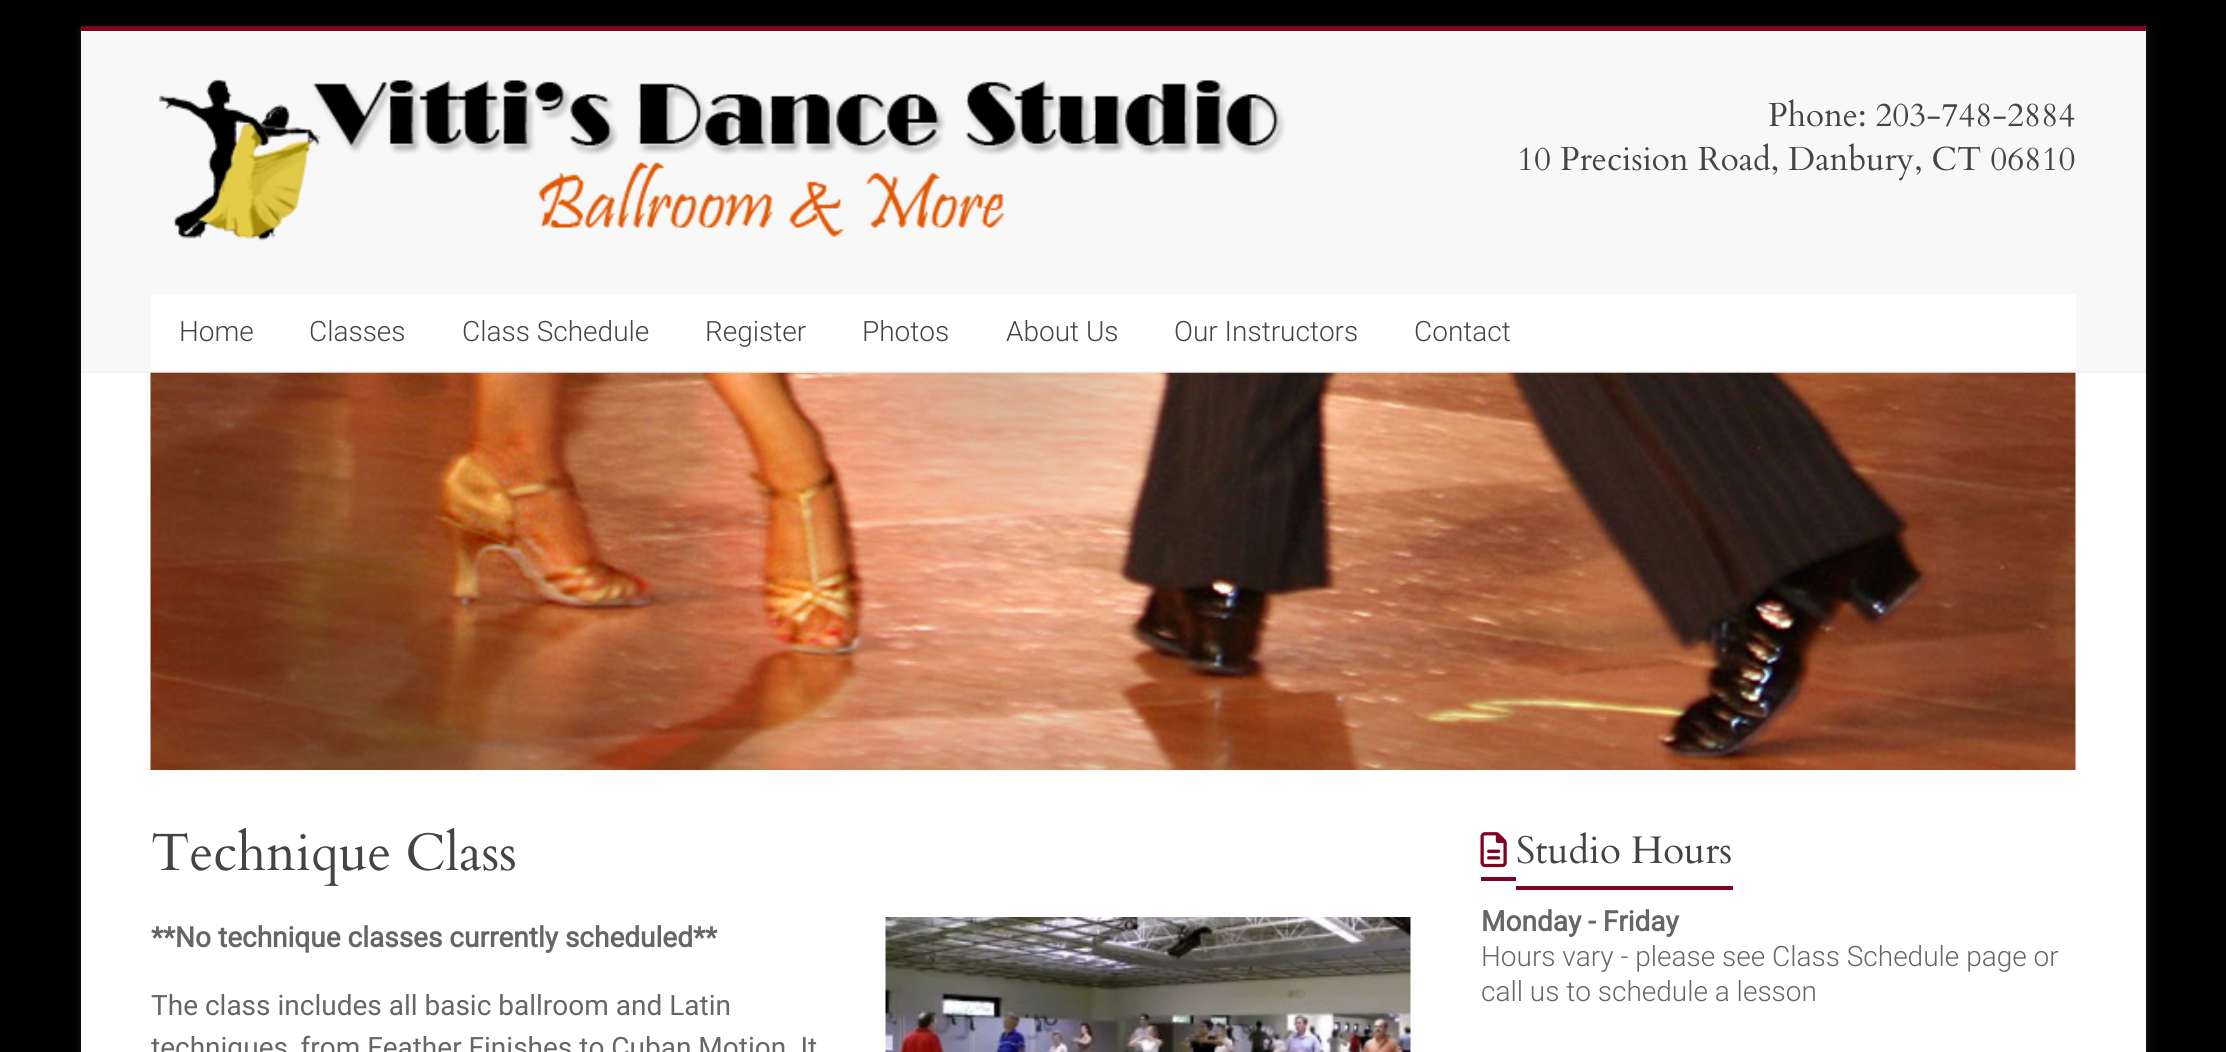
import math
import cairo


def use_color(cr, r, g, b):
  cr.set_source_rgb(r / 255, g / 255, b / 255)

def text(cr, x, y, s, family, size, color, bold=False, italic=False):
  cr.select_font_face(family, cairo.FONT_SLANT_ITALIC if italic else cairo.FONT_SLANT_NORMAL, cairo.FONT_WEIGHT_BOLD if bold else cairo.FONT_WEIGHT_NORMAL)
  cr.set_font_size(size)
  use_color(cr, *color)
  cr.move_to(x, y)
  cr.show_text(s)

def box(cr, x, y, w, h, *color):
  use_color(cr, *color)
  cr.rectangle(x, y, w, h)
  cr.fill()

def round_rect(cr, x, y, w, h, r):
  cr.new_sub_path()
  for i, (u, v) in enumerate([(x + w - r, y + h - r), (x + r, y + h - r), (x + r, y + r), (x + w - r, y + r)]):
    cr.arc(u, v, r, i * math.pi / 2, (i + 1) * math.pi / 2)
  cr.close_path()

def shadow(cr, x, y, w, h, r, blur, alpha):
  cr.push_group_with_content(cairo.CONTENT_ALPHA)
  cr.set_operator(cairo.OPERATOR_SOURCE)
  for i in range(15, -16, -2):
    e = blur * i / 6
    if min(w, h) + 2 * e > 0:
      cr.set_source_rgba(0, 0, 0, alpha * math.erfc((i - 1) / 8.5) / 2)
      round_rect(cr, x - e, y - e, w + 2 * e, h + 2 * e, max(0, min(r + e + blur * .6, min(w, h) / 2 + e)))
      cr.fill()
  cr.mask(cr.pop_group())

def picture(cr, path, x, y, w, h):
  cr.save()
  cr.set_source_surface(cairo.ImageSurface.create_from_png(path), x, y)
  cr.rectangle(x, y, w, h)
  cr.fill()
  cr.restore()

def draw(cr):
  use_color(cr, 0, 0, 0)
  cr.paint()
  use_color(cr, 100, 100, 100)
  shadow(cr, 81, 30, 2065, 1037, 0, 5, 0.3)
  box(cr, 81, 31, 2065, 1021, 255, 255, 255)
  box(cr, 81, 26, 2065, 5, 127, 2, 35)
  box(cr, 81, 32, 2065, 339, 248, 248, 248)
  box(cr, 81, 371, 2065, 2, 242, 242, 242)
  picture(cr, "img_01.png", 158, 78, 1127, 163)
  box(cr, 151, 294, 1925, 77, 255, 255, 255)
  picture(cr, "img_02.png", 150, 372, 1926, 398)
  picture(cr, "img_03.png", 885, 917, 526, 135)
  picture(cr, "img_04.png", 1480, 832, 27, 36)
  box(cr, 1481, 877, 35, 4, 127, 2, 35)
  box(cr, 1516, 886, 217, 4, 127, 2, 35)
  text(cr, 1768, 126, "Phone: 203-748-2884", "Cardo", 33.25, (68, 68, 68))
  text(cr, 1517, 170, "10 Precision Road, Danbury, CT 06810", "Cardo", 33.25, (68, 68, 68))
  text(cr, 179, 341, "Home", "Roboto Light", 28, (68, 68, 68))
  text(cr, 309, 341, "Classes", "Roboto Light", 28, (68, 68, 68))
  text(cr, 462, 341, "Class Schedule", "Roboto Light", 28, (68, 68, 68))
  text(cr, 705, 341, "Register", "Roboto Light", 28, (68, 68, 68))
  text(cr, 862, 341, "Photos", "Roboto Light", 28, (68, 68, 68))
  text(cr, 1006, 341, "About Us", "Roboto Light", 28, (68, 68, 68))
  text(cr, 1174, 341, "Our Instructors", "Roboto Light", 28, (68, 68, 68))
  text(cr, 1414, 341, "Contact", "Roboto Light", 28, (68, 68, 68))
  text(cr, 151, 870, "Technique Class", "Cardo", 52.5, (68, 68, 68))
  text(cr, 151, 947, "**No technique classes currently scheduled**", "Roboto", 28, (102, 102, 102), bold=True)
  text(cr, 151, 1015, "The class includes all basic ballroom and Latin", "Roboto", 28, (102, 102, 102))
  text(cr, 151, 1057, "techniques, from Feather Finishes to Cuban Motion. It", "Roboto", 28, (102, 102, 102))
  text(cr, 1516, 863, "Studio Hours", "Cardo", 38.5, (68, 68, 68))
  text(cr, 1481, 931, "Monday - Friday", "Roboto", 28, (102, 102, 102), bold=True)
  text(cr, 1481, 966, "Hours vary - please see Class Schedule page or", "Roboto Light", 28, (102, 102, 102))
  text(cr, 1481, 1001, "call us to schedule a lesson", "Roboto Light", 28, (102, 102, 102))


surface = cairo.ImageSurface(cairo.FORMAT_RGB24, 2226, 1052)
cr = cairo.Context(surface)
options = cairo.FontOptions()
options.set_hint_metrics(cairo.HINT_METRICS_OFF)
options.set_hint_style(cairo.HINT_STYLE_NONE)
cr.set_font_options(options)
cr.set_miter_limit(4)
draw(cr)
surface.write_to_png("out.png")
